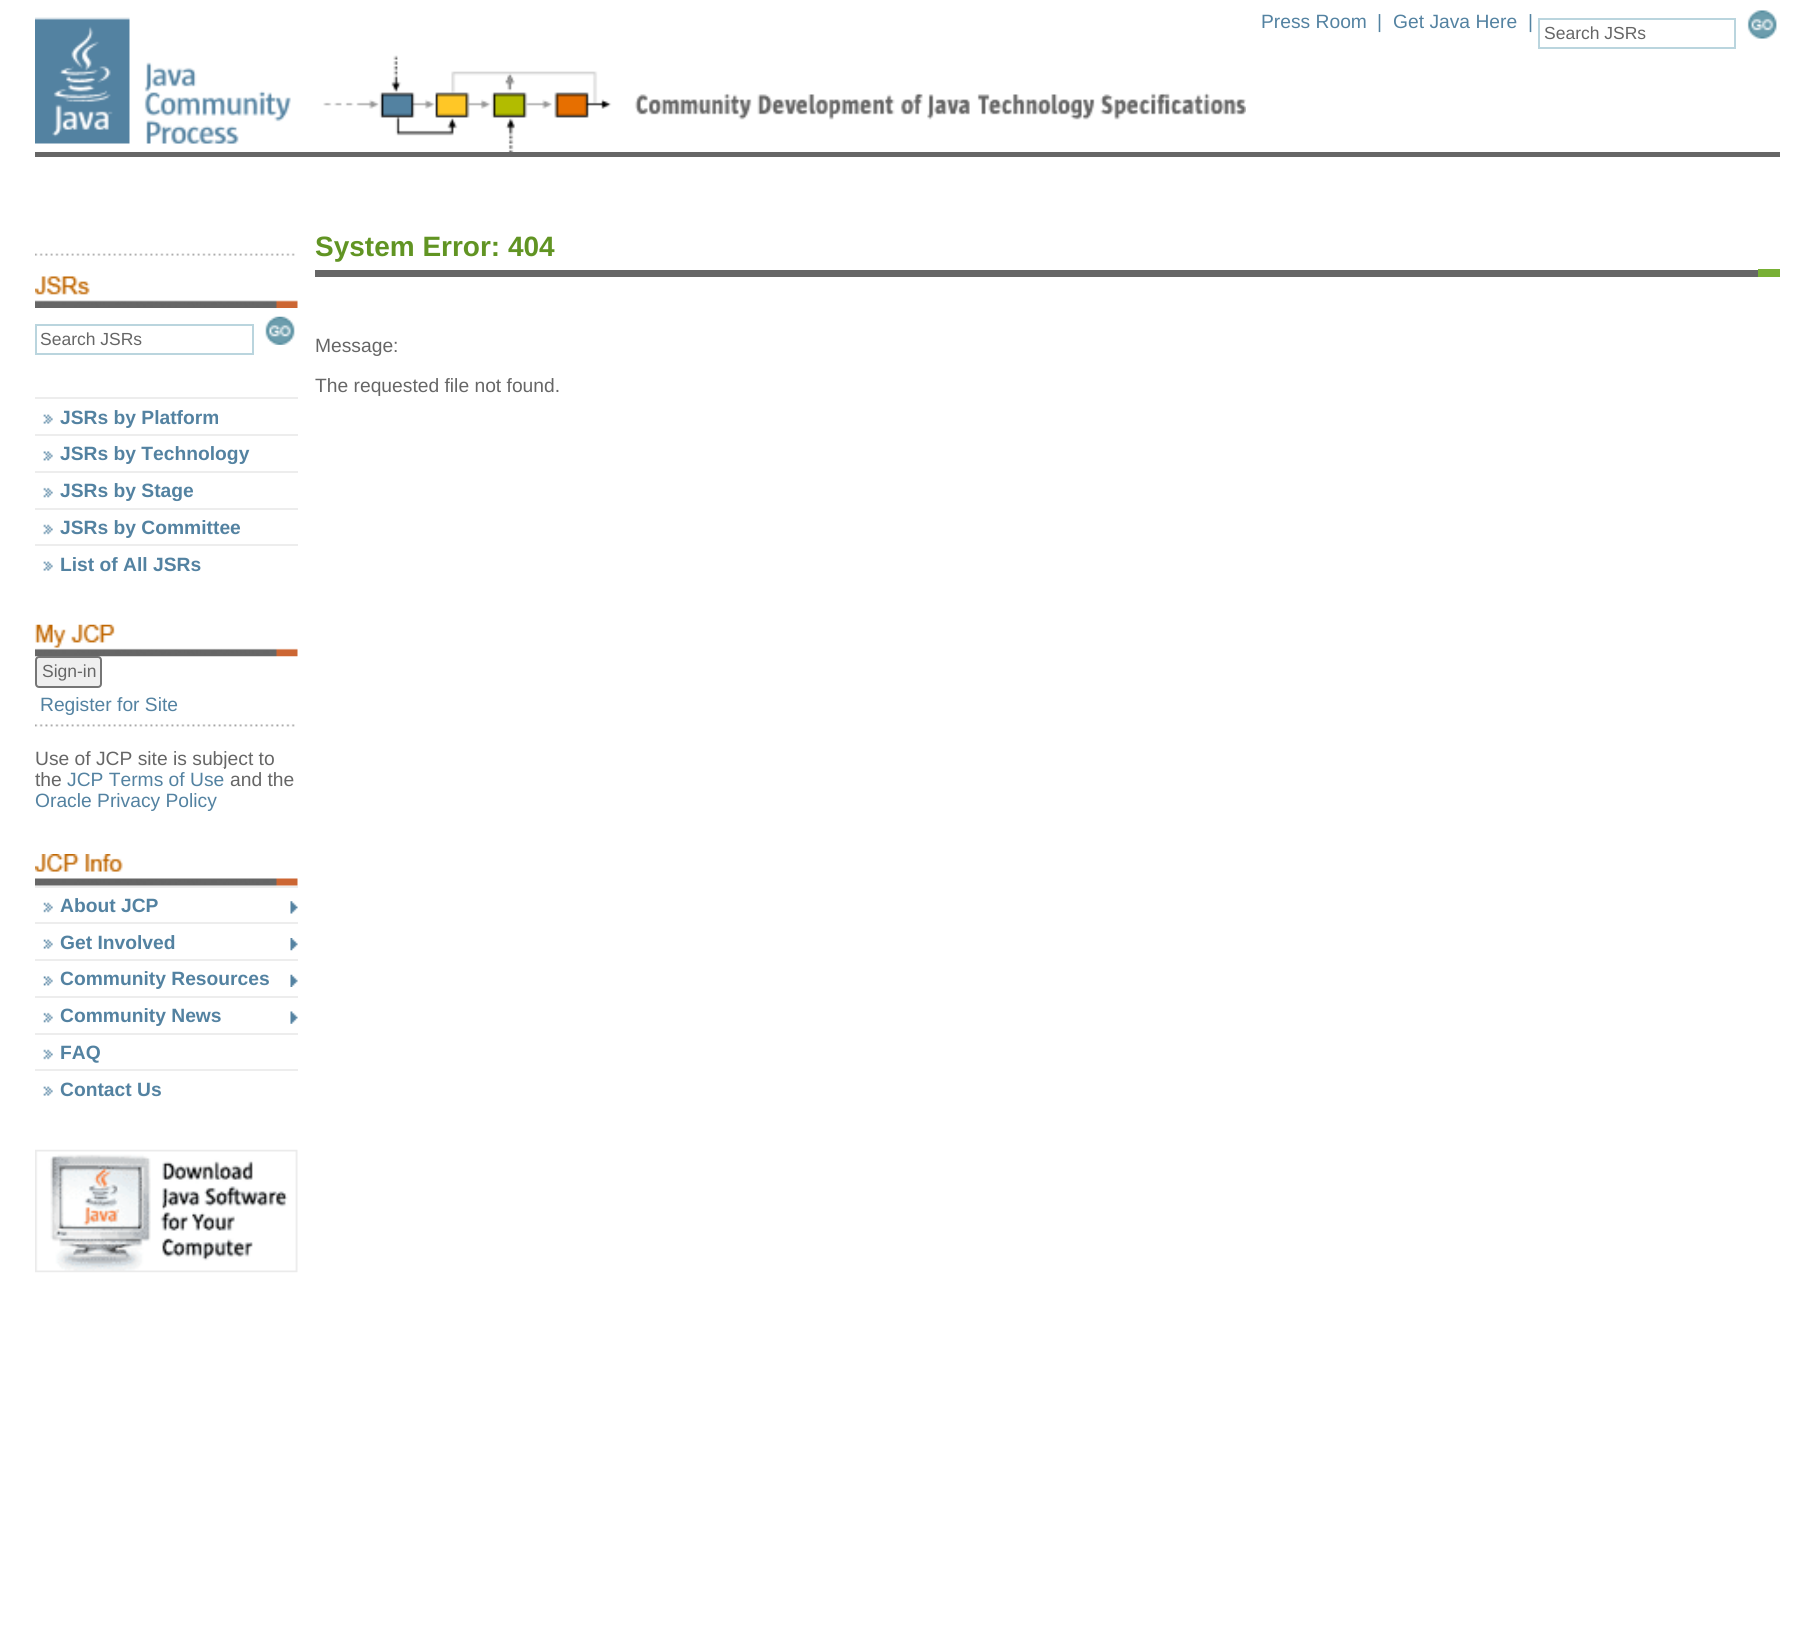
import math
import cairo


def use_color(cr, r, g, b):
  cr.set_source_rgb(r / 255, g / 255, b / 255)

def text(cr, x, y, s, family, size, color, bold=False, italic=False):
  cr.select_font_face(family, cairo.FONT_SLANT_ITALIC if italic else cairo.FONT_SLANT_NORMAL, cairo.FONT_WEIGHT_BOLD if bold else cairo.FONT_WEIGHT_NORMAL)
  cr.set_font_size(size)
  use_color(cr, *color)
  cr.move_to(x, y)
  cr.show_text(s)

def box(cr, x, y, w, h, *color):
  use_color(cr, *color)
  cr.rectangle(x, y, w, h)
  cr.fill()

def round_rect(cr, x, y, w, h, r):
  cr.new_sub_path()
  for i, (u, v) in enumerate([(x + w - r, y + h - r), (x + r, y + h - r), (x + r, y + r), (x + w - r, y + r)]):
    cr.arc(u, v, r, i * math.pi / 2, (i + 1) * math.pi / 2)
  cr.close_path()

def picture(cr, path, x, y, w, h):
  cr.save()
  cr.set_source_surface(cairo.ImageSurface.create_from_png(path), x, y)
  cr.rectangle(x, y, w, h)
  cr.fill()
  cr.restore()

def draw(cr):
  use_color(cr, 255, 255, 255)
  cr.paint()
  picture(cr, "img_01.png", 35, 17, 1211, 135)
  cr.rectangle(1539, 19, 196, 29)
  use_color(cr, 186, 213, 222)
  cr.stroke()
  picture(cr, "img_02.png", 1747, 10, 30, 29)
  box(cr, 35, 152, 1745, 5, 102, 102, 102)
  box(cr, 315, 270, 1443, 7, 102, 102, 102)
  box(cr, 1758, 269, 22, 8, 120, 176, 53)
  picture(cr, "img_03.png", 35, 253, 260, 3)
  picture(cr, "img_04.png", 35, 276, 263, 32)
  cr.rectangle(36, 325, 217, 29)
  use_color(cr, 186, 213, 222)
  cr.stroke()
  picture(cr, "img_05.png", 265, 316, 30, 29)
  picture(cr, "img_06.png", 43, 414, 10, 10)
  box(cr, 35, 397, 263, 2, 237, 237, 237)
  picture(cr, "img_07.png", 43, 451, 10, 10)
  box(cr, 35, 434, 263, 2, 237, 237, 237)
  picture(cr, "img_08.png", 43, 487, 10, 11)
  box(cr, 35, 471, 263, 2, 237, 237, 237)
  picture(cr, "img_09.png", 43, 524, 10, 11)
  box(cr, 35, 508, 263, 2, 237, 237, 237)
  picture(cr, "img_06.png", 43, 561, 10, 10)
  box(cr, 35, 544, 263, 2, 237, 237, 237)
  picture(cr, "img_10.png", 35, 624, 263, 33)
  use_color(cr, 239, 239, 239)
  round_rect(cr, 36, 657, 65, 30, 3)
  cr.fill_preserve()
  use_color(cr, 118, 118, 118)
  cr.stroke()
  picture(cr, "img_11.png", 35, 724, 260, 3)
  picture(cr, "img_12.png", 35, 854, 263, 32)
  picture(cr, "img_13.png", 43, 901, 255, 13)
  box(cr, 35, 886, 263, 2, 237, 237, 237)
  picture(cr, "img_14.png", 43, 938, 255, 13)
  box(cr, 35, 922, 263, 2, 237, 237, 237)
  picture(cr, "img_15.png", 43, 974, 255, 13)
  box(cr, 35, 959, 263, 2, 237, 237, 237)
  picture(cr, "img_16.png", 43, 1011, 255, 13)
  box(cr, 35, 996, 263, 2, 237, 237, 237)
  picture(cr, "img_09.png", 43, 1049, 10, 11)
  box(cr, 35, 1033, 263, 2, 237, 237, 237)
  picture(cr, "img_06.png", 43, 1086, 10, 10)
  box(cr, 35, 1069, 263, 2, 237, 237, 237)
  picture(cr, "img_17.png", 35, 1149, 263, 124)
  text(cr, 1261, 28, "Press Room", "Liberation Sans", 19.25, (83, 130, 161))
  text(cr, 1377, 28, "|", "Liberation Sans", 19.25, (83, 130, 161))
  text(cr, 1393, 28, "Get Java Here", "Liberation Sans", 19.25, (83, 130, 161))
  text(cr, 1528, 28, "|", "Liberation Sans", 19.25, (83, 130, 161))
  text(cr, 1544, 39, "Search JSRs", "Liberation Sans", 17.5, (102, 102, 102))
  text(cr, 315, 256, "System Error: 404", "Liberation Sans", 28, (97, 148, 35), bold=True)
  text(cr, 315, 352, "Message:", "Liberation Sans", 19.25, (102, 102, 102))
  text(cr, 315, 392, "The requested file not found.", "Liberation Sans", 19.25, (102, 102, 102))
  text(cr, 40, 345, "Search JSRs", "Liberation Sans", 17.5, (102, 102, 102))
  text(cr, 60, 424, "JSRs by Platform", "Liberation Sans", 19.25, (83, 130, 161), bold=True)
  text(cr, 60, 460, "JSRs by Technology", "Liberation Sans", 19.25, (83, 130, 161), bold=True)
  text(cr, 60, 497, "JSRs by Stage", "Liberation Sans", 19.25, (83, 130, 161), bold=True)
  text(cr, 60, 534, "JSRs by Committee", "Liberation Sans", 19.25, (83, 130, 161), bold=True)
  text(cr, 60, 571, "List of All JSRs", "Liberation Sans", 19.25, (83, 130, 161), bold=True)
  text(cr, 42, 677, "Sign-in", "Liberation Sans", 17.5, (102, 102, 102))
  text(cr, 40, 711, "Register for Site", "Liberation Sans", 19.25, (83, 130, 161))
  text(cr, 35, 765, "Use of JCP site is subject to", "Liberation Sans", 19.25, (102, 102, 102))
  text(cr, 35, 786, "the", "Liberation Sans", 19.25, (102, 102, 102))
  text(cr, 67, 786, "JCP Terms of Use", "Liberation Sans", 19.25, (83, 130, 161))
  box(cr, 222, 768, 2, 1, 255, 255, 255)
  text(cr, 230, 786, "and the", "Liberation Sans", 19.25, (102, 102, 102))
  text(cr, 35, 807, "Oracle Privacy Policy", "Liberation Sans", 19.25, (83, 130, 161))
  text(cr, 60, 912, "About JCP", "Liberation Sans", 19.25, (83, 130, 161), bold=True)
  text(cr, 60, 949, "Get Involved", "Liberation Sans", 19.25, (83, 130, 161), bold=True)
  text(cr, 60, 985, "Community Resources", "Liberation Sans", 19.25, (83, 130, 161), bold=True)
  text(cr, 60, 1022, "Community News", "Liberation Sans", 19.25, (83, 130, 161), bold=True)
  text(cr, 60, 1059, "FAQ", "Liberation Sans", 19.25, (83, 130, 161), bold=True)
  text(cr, 60, 1096, "Contact Us", "Liberation Sans", 19.25, (83, 130, 161), bold=True)


surface = cairo.ImageSurface(cairo.FORMAT_RGB24, 1814, 1639)
cr = cairo.Context(surface)
options = cairo.FontOptions()
options.set_hint_metrics(cairo.HINT_METRICS_OFF)
options.set_hint_style(cairo.HINT_STYLE_NONE)
cr.set_font_options(options)
cr.set_miter_limit(4)
draw(cr)
surface.write_to_png("out.png")
